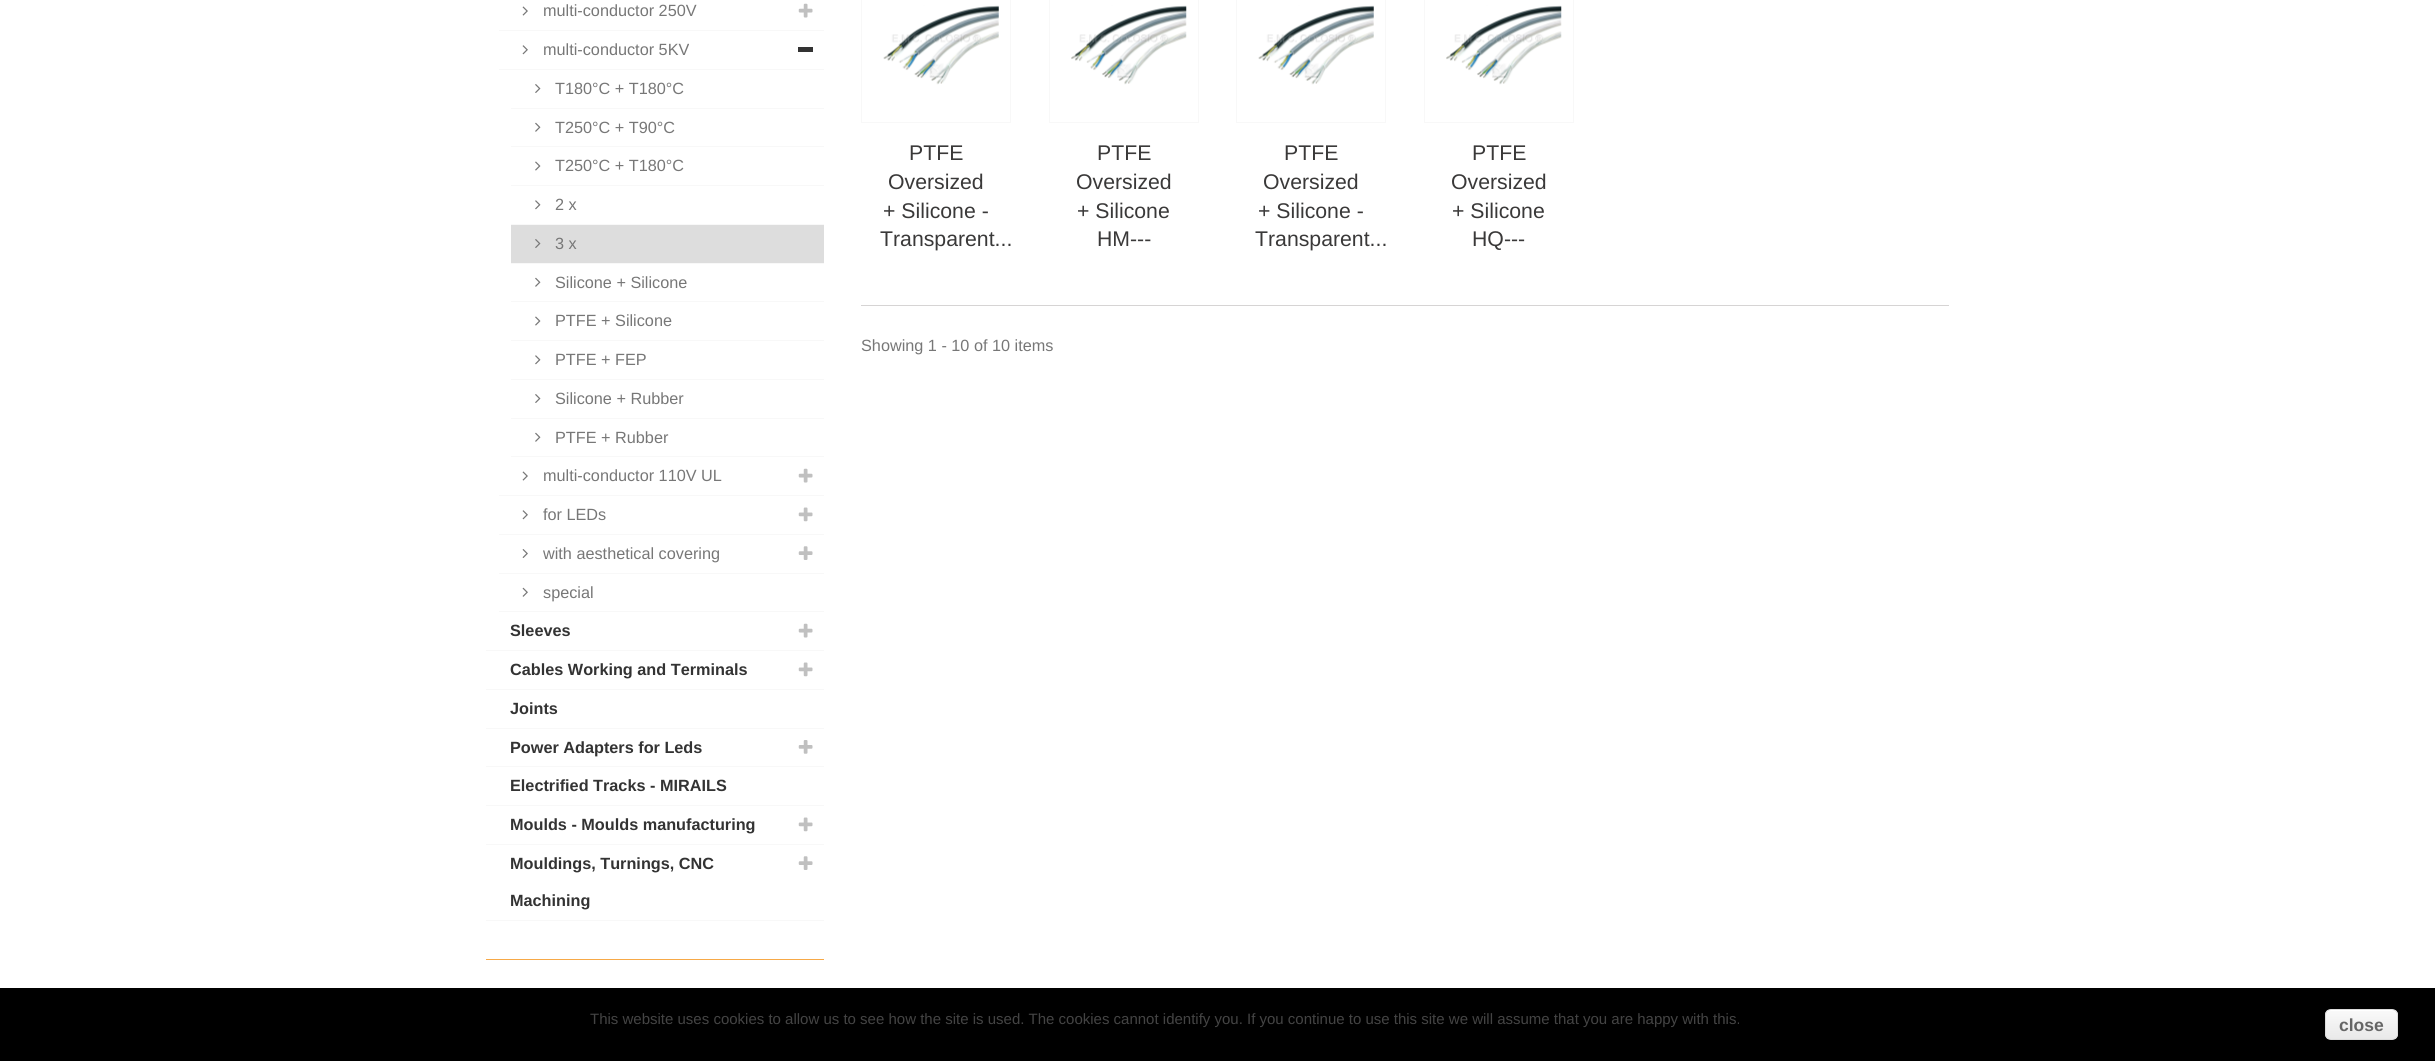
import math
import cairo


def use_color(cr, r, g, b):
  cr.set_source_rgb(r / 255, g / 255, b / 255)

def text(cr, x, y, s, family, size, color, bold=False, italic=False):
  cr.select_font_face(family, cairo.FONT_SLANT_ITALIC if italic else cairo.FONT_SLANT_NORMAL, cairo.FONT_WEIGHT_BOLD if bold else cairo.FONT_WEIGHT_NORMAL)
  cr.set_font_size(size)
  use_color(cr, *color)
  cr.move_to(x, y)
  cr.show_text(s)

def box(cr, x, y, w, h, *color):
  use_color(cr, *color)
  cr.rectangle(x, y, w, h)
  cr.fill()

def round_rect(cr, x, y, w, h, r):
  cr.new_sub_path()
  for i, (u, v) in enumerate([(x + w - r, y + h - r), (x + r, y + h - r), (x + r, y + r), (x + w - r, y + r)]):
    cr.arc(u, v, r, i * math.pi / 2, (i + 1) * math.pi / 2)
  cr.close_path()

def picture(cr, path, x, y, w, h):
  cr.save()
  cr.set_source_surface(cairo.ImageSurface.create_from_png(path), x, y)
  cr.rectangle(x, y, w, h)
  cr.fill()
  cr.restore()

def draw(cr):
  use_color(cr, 255, 255, 255)
  cr.paint()
  box(cr, 499, 30, 325, 1, 248, 248, 248)
  picture(cr, "img_01.png", 522, 6, 6, 10)
  picture(cr, "img_02.png", 798, 3, 15, 15)
  box(cr, 499, 69, 325, 1, 248, 248, 248)
  picture(cr, "img_03.png", 522, 45, 6, 10)
  box(cr, 798, 47, 15, 5, 51, 51, 51)
  box(cr, 511, 108, 313, 1, 248, 248, 248)
  picture(cr, "img_04.png", 535, 84, 6, 9)
  box(cr, 511, 146, 313, 1, 248, 248, 248)
  picture(cr, "img_05.png", 535, 122, 6, 10)
  box(cr, 511, 185, 313, 1, 248, 248, 248)
  picture(cr, "img_06.png", 535, 161, 6, 10)
  box(cr, 511, 224, 313, 1, 248, 248, 248)
  picture(cr, "img_07.png", 535, 200, 6, 10)
  box(cr, 511, 225, 313, 38, 221, 221, 221)
  box(cr, 511, 263, 313, 1, 248, 248, 248)
  picture(cr, "img_08.png", 535, 239, 6, 9)
  box(cr, 511, 301, 313, 1, 248, 248, 248)
  picture(cr, "img_05.png", 535, 277, 6, 10)
  box(cr, 511, 340, 313, 1, 248, 248, 248)
  picture(cr, "img_06.png", 535, 316, 6, 10)
  box(cr, 511, 379, 313, 1, 248, 248, 248)
  picture(cr, "img_07.png", 535, 355, 6, 10)
  box(cr, 511, 418, 313, 1, 248, 248, 248)
  picture(cr, "img_04.png", 535, 394, 6, 9)
  box(cr, 511, 456, 313, 1, 248, 248, 248)
  picture(cr, "img_05.png", 535, 432, 6, 10)
  box(cr, 499, 495, 325, 1, 248, 248, 248)
  picture(cr, "img_01.png", 522, 471, 6, 10)
  picture(cr, "img_02.png", 798, 468, 15, 15)
  box(cr, 499, 534, 325, 1, 248, 248, 248)
  picture(cr, "img_03.png", 522, 510, 6, 10)
  picture(cr, "img_09.png", 798, 507, 15, 15)
  box(cr, 499, 573, 325, 1, 248, 248, 248)
  picture(cr, "img_10.png", 522, 549, 6, 9)
  picture(cr, "img_11.png", 798, 546, 15, 14)
  box(cr, 499, 611, 325, 1, 248, 248, 248)
  picture(cr, "img_12.png", 522, 587, 6, 10)
  box(cr, 486, 650, 338, 1, 248, 248, 248)
  picture(cr, "img_02.png", 798, 623, 15, 15)
  box(cr, 486, 689, 338, 1, 248, 248, 248)
  picture(cr, "img_09.png", 798, 662, 15, 15)
  box(cr, 486, 728, 338, 1, 248, 248, 248)
  box(cr, 486, 766, 338, 1, 248, 248, 248)
  picture(cr, "img_13.png", 798, 740, 15, 14)
  box(cr, 486, 805, 338, 1, 248, 248, 248)
  box(cr, 486, 844, 338, 1, 248, 248, 248)
  picture(cr, "img_09.png", 798, 817, 15, 15)
  box(cr, 486, 920, 338, 1, 248, 248, 248)
  picture(cr, "img_11.png", 798, 856, 15, 14)
  box(cr, 486, 959, 338, 1, 247, 169, 72)
  cr.rectangle(861.5, -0.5, 149, 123)
  use_color(cr, 248, 248, 248)
  cr.set_line_width(1)
  cr.stroke()
  picture(cr, "img_14.png", 883, 5, 116, 80)
  cr.rectangle(1049.5, -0.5, 149, 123)
  cr.stroke()
  picture(cr, "img_15.png", 1071, 5, 116, 80)
  cr.rectangle(1236.5, -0.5, 149, 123)
  cr.stroke()
  picture(cr, "img_16.png", 1258, 5, 116, 80)
  cr.rectangle(1424.5, -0.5, 149, 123)
  cr.stroke()
  picture(cr, "img_17.png", 1446, 5, 116, 80)
  box(cr, 861, 305, 1088, 1, 214, 212, 212)
  box(cr, 0, 988, 2435, 73, 0, 0, 0)
  cr.save()
  round_rect(cr, 2325, 1009, 73, 31, 6)
  cr.clip()
  gradient = cairo.LinearGradient(2326, 1010, 2326, 1039)
  gradient.add_color_stop_rgba(0.05, 0.976, 0.976, 0.976, 1)
  gradient.add_color_stop_rgba(1, 0.914, 0.914, 0.914, 1)
  cr.set_source(gradient)
  cr.rectangle(2325, 1010, 73, 29)
  cr.fill()
  cr.restore()
  use_color(cr, 255, 255, 255)
  cr.new_path()
  cr.move_to(2331, 1011)
  cr.line_to(2391, 1011)
  cr.curve_to(2394, 1011, 2396, 1013, 2396, 1016)
  cr.curve_to(2396, 1008, 2387, 1010, 2381, 1010)
  cr.line_to(2341, 1010)
  cr.curve_to(2335, 1010, 2326, 1008, 2326, 1016)
  cr.curve_to(2326, 1013, 2328, 1011, 2331, 1011)
  cr.close_path()
  cr.fill()
  round_rect(cr, 2325.5, 1009.5, 72, 30, 5.5)
  use_color(cr, 220, 220, 220)
  cr.stroke()
  text(cr, 543, 16, "multi-conductor 250V", "Liberation Sans", 16.25, (119, 119, 119))
  text(cr, 543, 55, "multi-conductor 5KV", "Liberation Sans", 16.25, (119, 119, 119))
  text(cr, 555, 94, "T180°C + T180°C", "Liberation Sans", 16.25, (119, 119, 119))
  text(cr, 555, 133, "T250°C + T90°C", "Liberation Sans", 16.25, (119, 119, 119))
  text(cr, 555, 171, "T250°C + T180°C", "Liberation Sans", 16.25, (119, 119, 119))
  text(cr, 555, 210, "2 x", "Liberation Sans", 16.25, (119, 119, 119))
  text(cr, 555, 249, "3 x", "Liberation Sans", 16.25, (119, 119, 119))
  text(cr, 555, 288, "Silicone + Silicone", "Liberation Sans", 16.25, (119, 119, 119))
  text(cr, 555, 326, "PTFE + Silicone", "Liberation Sans", 16.25, (119, 119, 119))
  text(cr, 555, 365, "PTFE + FEP", "Liberation Sans", 16.25, (119, 119, 119))
  text(cr, 555, 404, "Silicone + Rubber", "Liberation Sans", 16.25, (119, 119, 119))
  text(cr, 555, 443, "PTFE + Rubber", "Liberation Sans", 16.25, (119, 119, 119))
  text(cr, 543, 481, "multi-conductor 110V UL", "Liberation Sans", 16.25, (119, 119, 119))
  text(cr, 543, 520, "for LEDs", "Liberation Sans", 16.25, (119, 119, 119))
  text(cr, 543, 559, "with aesthetical covering", "Liberation Sans", 16.25, (119, 119, 119))
  text(cr, 543, 598, "special", "Liberation Sans", 16.25, (119, 119, 119))
  text(cr, 510, 636, "Sleeves", "Liberation Sans", 16.25, (51, 51, 51), bold=True)
  text(cr, 510, 675, "Cables Working and Terminals", "Liberation Sans", 16.25, (51, 51, 51), bold=True)
  text(cr, 510, 714, "Joints", "Liberation Sans", 16.25, (51, 51, 51), bold=True)
  text(cr, 510, 753, "Power Adapters for Leds", "Liberation Sans", 16.25, (51, 51, 51), bold=True)
  text(cr, 510, 791, "Electrified Tracks - MIRAILS", "Liberation Sans", 16.25, (51, 51, 51), bold=True)
  text(cr, 510, 830, "Moulds - Moulds manufacturing", "Liberation Sans", 16.25, (51, 51, 51), bold=True)
  text(cr, 510, 869, "Mouldings, Turnings, CNC", "Liberation Sans", 16.25, (51, 51, 51), bold=True)
  text(cr, 510, 906, "Machining", "Liberation Sans", 16.25, (51, 51, 51), bold=True)
  text(cr, 909, 160, "PTFE", "Liberation Sans", 21.25, (58, 57, 57))
  text(cr, 888, 189, "Oversized", "Liberation Sans", 21.25, (58, 57, 57))
  text(cr, 883, 218, "+ Silicone -", "Liberation Sans", 21.25, (58, 57, 57))
  text(cr, 880, 246, "Transparent...", "Liberation Sans", 21.25, (58, 57, 57))
  text(cr, 1097, 160, "PTFE", "Liberation Sans", 21.25, (58, 57, 57))
  text(cr, 1076, 189, "Oversized", "Liberation Sans", 21.25, (58, 57, 57))
  text(cr, 1077, 218, "+ Silicone", "Liberation Sans", 21.25, (58, 57, 57))
  text(cr, 1097, 246, "HM---", "Liberation Sans", 21.25, (58, 57, 57))
  text(cr, 1284, 160, "PTFE", "Liberation Sans", 21.25, (58, 57, 57))
  text(cr, 1263, 189, "Oversized", "Liberation Sans", 21.25, (58, 57, 57))
  text(cr, 1258, 218, "+ Silicone -", "Liberation Sans", 21.25, (58, 57, 57))
  text(cr, 1255, 246, "Transparent...", "Liberation Sans", 21.25, (58, 57, 57))
  text(cr, 1472, 160, "PTFE", "Liberation Sans", 21.25, (58, 57, 57))
  text(cr, 1451, 189, "Oversized", "Liberation Sans", 21.25, (58, 57, 57))
  text(cr, 1452, 218, "+ Silicone", "Liberation Sans", 21.25, (58, 57, 57))
  text(cr, 1472, 246, "HQ---", "Liberation Sans", 21.25, (58, 57, 57))
  text(cr, 861, 351, "Showing 1 - 10 of 10 items", "Liberation Sans", 16.25, (119, 119, 119))
  text(cr, 590, 1024, "This website uses cookies to allow us to see how the site is used. The cookies cannot identify you. If you continue to use this site we will assume that you are happy with this.", "Liberation Sans", 15, (68, 68, 68))
  text(cr, 2339, 1031, "close", "Liberation Sans", 17.5, (102, 102, 102), bold=True)


surface = cairo.ImageSurface(cairo.FORMAT_RGB24, 2435, 1061)
cr = cairo.Context(surface)
options = cairo.FontOptions()
options.set_hint_metrics(cairo.HINT_METRICS_OFF)
options.set_hint_style(cairo.HINT_STYLE_NONE)
cr.set_font_options(options)
cr.set_miter_limit(4)
draw(cr)
surface.write_to_png("out.png")
